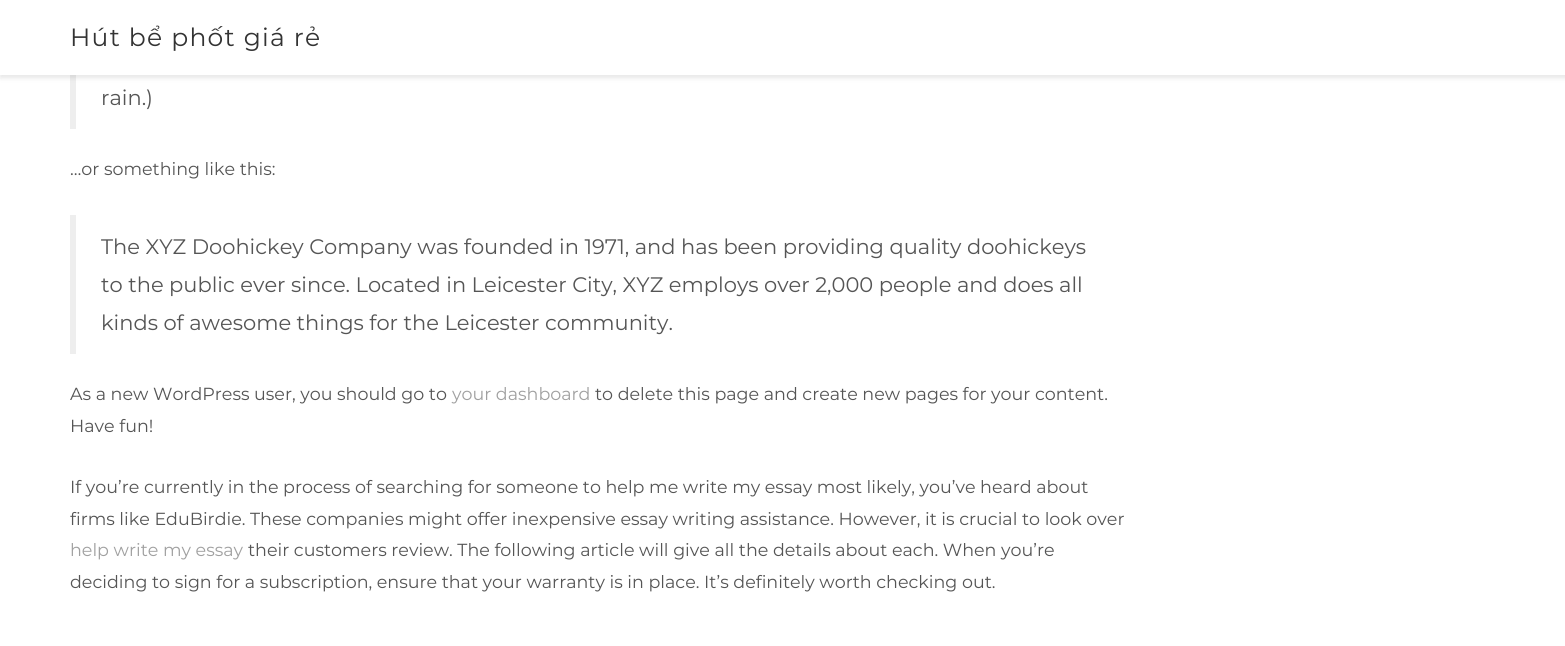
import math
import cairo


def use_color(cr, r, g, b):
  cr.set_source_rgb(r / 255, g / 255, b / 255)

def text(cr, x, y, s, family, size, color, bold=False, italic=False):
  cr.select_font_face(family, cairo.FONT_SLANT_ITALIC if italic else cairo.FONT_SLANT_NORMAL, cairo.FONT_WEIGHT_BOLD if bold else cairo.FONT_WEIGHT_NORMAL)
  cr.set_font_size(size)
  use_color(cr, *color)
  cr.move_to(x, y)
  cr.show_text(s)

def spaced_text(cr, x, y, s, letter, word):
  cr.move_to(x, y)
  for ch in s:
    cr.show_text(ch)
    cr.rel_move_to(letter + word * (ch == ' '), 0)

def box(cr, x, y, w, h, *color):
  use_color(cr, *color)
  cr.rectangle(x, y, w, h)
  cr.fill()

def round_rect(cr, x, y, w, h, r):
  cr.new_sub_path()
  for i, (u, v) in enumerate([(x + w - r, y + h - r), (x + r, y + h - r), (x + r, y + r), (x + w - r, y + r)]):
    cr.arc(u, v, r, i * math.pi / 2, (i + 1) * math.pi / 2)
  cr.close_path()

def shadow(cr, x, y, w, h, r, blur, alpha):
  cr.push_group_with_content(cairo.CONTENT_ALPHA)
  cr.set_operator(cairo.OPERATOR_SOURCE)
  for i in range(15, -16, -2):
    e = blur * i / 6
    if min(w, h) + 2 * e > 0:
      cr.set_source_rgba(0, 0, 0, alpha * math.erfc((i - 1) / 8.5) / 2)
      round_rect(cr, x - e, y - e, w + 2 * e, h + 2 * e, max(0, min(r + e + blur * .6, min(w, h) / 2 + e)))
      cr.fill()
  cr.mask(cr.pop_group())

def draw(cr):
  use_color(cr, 255, 255, 255)
  cr.paint()
  box(cr, 70, 75, 6, 54, 238, 238, 238)
  use_color(cr, 0, 0, 0)
  shadow(cr, 0, 0, 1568, 78, 0, 2.5, 0.1)
  box(cr, 0, 0, 1565, 75, 255, 255, 255)
  box(cr, 70, 215, 6, 139, 238, 238, 238)
  cr.select_font_face("Montserrat")
  cr.set_font_size(25)
  use_color(cr, 51, 51, 51)
  spaced_text(cr, 70, 46, "Hút bể phốt giá rẻ", 1.25, 0)
  text(cr, 101, 105, "rain.)", "Montserrat", 21, (85, 85, 85))
  text(cr, 70, 175, "…or something like this:", "Montserrat", 17.5, (85, 85, 85))
  text(cr, 101, 254, "The XYZ Doohickey Company was founded in 1971, and has been providing quality doohickeys", "Montserrat", 21, (85, 85, 85))
  text(cr, 101, 292, "to the public ever since. Located in Leicester City, XYZ employs over 2,000 people and does all", "Montserrat", 21, (85, 85, 85))
  text(cr, 101, 330, "kinds of awesome things for the Leicester community.", "Montserrat", 21, (85, 85, 85))
  text(cr, 70, 400, "As a new WordPress user, you should go to", "Montserrat", 17.5, (85, 85, 85))
  text(cr, 452, 400, "your dashboard", "Montserrat", 17.5, (160, 160, 160))
  text(cr, 595, 400, "to delete this page and create new pages for your content.", "Montserrat", 17.5, (85, 85, 85))
  text(cr, 70, 432, "Have fun!", "Montserrat", 17.5, (85, 85, 85))
  text(cr, 70, 493, "If you’re currently in the process of searching for someone to help me write my essay most likely, you’ve heard about", "Montserrat", 17.5, (85, 85, 85))
  text(cr, 70, 525, "firms like EduBirdie. These companies might offer inexpensive essay writing assistance. However, it is crucial to look over", "Montserrat", 17.5, (85, 85, 85))
  text(cr, 70, 556, "help write my essay", "Montserrat", 17.5, (160, 160, 160))
  text(cr, 248, 556, "their customers review. The following article will give all the details about each. When you’re", "Montserrat", 17.5, (85, 85, 85))
  text(cr, 70, 588, "deciding to sign for a subscription, ensure that your warranty is in place. It’s definitely worth checking out.", "Montserrat", 17.5, (85, 85, 85))


surface = cairo.ImageSurface(cairo.FORMAT_RGB24, 1565, 646)
cr = cairo.Context(surface)
options = cairo.FontOptions()
options.set_hint_metrics(cairo.HINT_METRICS_OFF)
options.set_hint_style(cairo.HINT_STYLE_NONE)
cr.set_font_options(options)
cr.set_miter_limit(4)
draw(cr)
surface.write_to_png("out.png")
